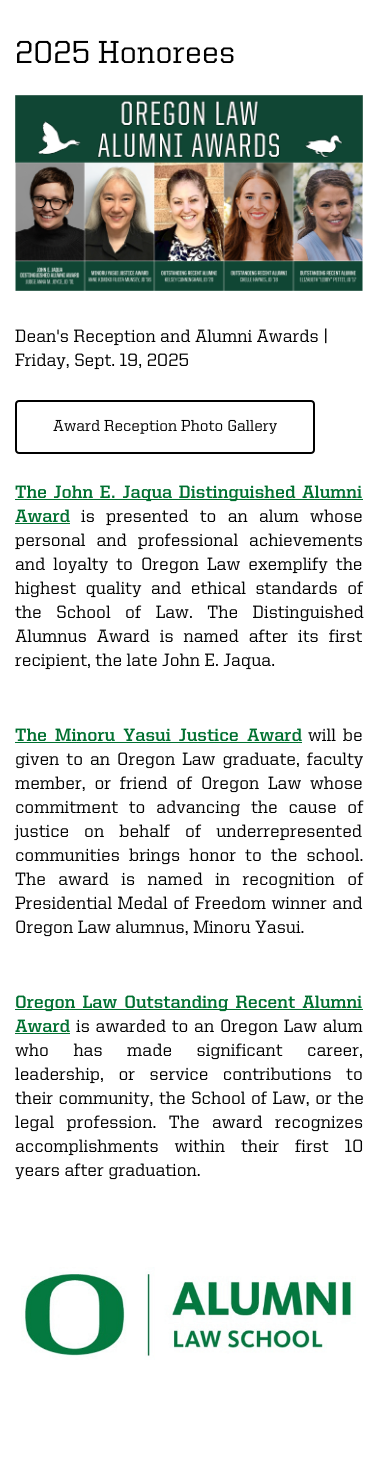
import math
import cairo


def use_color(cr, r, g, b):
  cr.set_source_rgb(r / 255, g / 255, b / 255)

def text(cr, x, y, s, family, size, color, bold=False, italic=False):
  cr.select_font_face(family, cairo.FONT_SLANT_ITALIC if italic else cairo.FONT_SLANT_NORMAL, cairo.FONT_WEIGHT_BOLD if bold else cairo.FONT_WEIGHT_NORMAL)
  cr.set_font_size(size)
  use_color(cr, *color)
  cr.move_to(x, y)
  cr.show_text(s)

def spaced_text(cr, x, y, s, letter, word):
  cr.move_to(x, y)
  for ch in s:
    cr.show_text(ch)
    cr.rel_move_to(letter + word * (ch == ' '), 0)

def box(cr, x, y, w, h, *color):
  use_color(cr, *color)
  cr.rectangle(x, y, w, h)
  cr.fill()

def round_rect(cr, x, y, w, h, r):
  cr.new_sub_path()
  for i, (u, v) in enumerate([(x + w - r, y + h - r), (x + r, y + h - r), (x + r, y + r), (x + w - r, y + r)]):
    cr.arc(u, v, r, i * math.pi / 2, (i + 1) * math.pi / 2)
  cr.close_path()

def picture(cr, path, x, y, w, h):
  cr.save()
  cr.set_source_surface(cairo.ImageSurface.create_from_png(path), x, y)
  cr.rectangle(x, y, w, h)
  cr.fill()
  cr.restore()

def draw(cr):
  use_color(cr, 255, 255, 255)
  cr.paint()
  picture(cr, "img_01.png", 15, 95, 348, 196)
  round_rect(cr, 16, 401, 298, 52, 3)
  use_color(cr, 0, 0, 0)
  cr.stroke()
  box(cr, 15, 499, 348, 1, 0, 112, 48)
  box(cr, 15, 523, 55, 1, 0, 112, 48)
  box(cr, 15, 742, 287, 1, 0, 112, 48)
  box(cr, 15, 1009, 348, 1, 0, 112, 48)
  box(cr, 15, 1033, 55, 1, 0, 112, 48)
  picture(cr, "img_02.png", 21, 1267, 335, 93)
  text(cr, 15, 63, "2025 Honorees", "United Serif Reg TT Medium", 32, (0, 0, 0))
  text(cr, 15, 342, "Dean's Reception and Alumni Awards |", "United Serif Reg TT Medium", 18, (0, 0, 0))
  text(cr, 15, 366, "Friday, Sept. 19, 2025", "United Serif Reg TT Medium", 18, (0, 0, 0))
  text(cr, 53, 431, "Award Reception Photo Gallery", "United Serif Reg TT Medium", 16, (0, 0, 0))
  cr.select_font_face("United Serif Reg TT", cairo.FONT_SLANT_NORMAL, cairo.FONT_WEIGHT_BOLD)
  cr.set_font_size(18)
  use_color(cr, 0, 112, 48)
  spaced_text(cr, 15, 498, "The John E. Jaqua Distinguished Alumni", 0, 1)
  text(cr, 15, 522, "Award", "United Serif Reg TT", 18, (0, 112, 48), bold=True)
  cr.select_font_face("United Serif Reg TT Medium")
  use_color(cr, 0, 0, 0)
  spaced_text(cr, 81, 522, "is presented to an alum whose", 0, 6.75)
  spaced_text(cr, 15, 546, "personal and professional achievements", 0, 6.5)
  spaced_text(cr, 15, 570, "and loyalty to Oregon Law exemplify the", 0, 3.5)
  spaced_text(cr, 15, 594, "highest quality and ethical standards of", 0, 5)
  spaced_text(cr, 15, 618, "the School of Law. The Distinguished", 0, 10)
  spaced_text(cr, 15, 642, "Alumnus Award is named after its first", 0, 5.5)
  text(cr, 15, 666, "recipient, the late John E. Jaqua.", "United Serif Reg TT Medium", 18, (0, 0, 0))
  cr.select_font_face("United Serif Reg TT", cairo.FONT_SLANT_NORMAL, cairo.FONT_WEIGHT_BOLD)
  use_color(cr, 0, 112, 48)
  spaced_text(cr, 15, 741, "The Minoru Yasui Justice Award", 0, 2.5)
  cr.select_font_face("United Serif Reg TT Medium")
  use_color(cr, 0, 0, 0)
  spaced_text(cr, 308, 741, "will be", 0, 2.5)
  spaced_text(cr, 15, 765, "given to an Oregon Law graduate, faculty", 0, 2.5)
  spaced_text(cr, 15, 789, "member, or friend of Oregon Law whose", 0, 4.25)
  spaced_text(cr, 15, 813, "commitment to advancing the cause of", 0, 6.25)
  spaced_text(cr, 15, 837, "justice on behalf of underrepresented", 0, 10.5)
  spaced_text(cr, 15, 861, "communities brings honor to the school.", 0, 4.5)
  spaced_text(cr, 15, 885, "The award is named in recognition of", 0, 8)
  spaced_text(cr, 15, 909, "Presidential Medal of Freedom winner and", 0, 1)
  text(cr, 15, 933, "Oregon Law alumnus, Minoru Yasui.", "United Serif Reg TT Medium", 18, (0, 0, 0))
  cr.select_font_face("United Serif Reg TT", cairo.FONT_SLANT_NORMAL, cairo.FONT_WEIGHT_BOLD)
  use_color(cr, 0, 112, 48)
  spaced_text(cr, 15, 1008, "Oregon Law Outstanding Recent Alumni", 0, 1.5)
  text(cr, 15, 1032, "Award", "United Serif Reg TT", 18, (0, 112, 48), bold=True)
  cr.select_font_face("United Serif Reg TT Medium")
  use_color(cr, 0, 0, 0)
  spaced_text(cr, 76, 1032, "is awarded to an Oregon Law alum", 0, 1.25)
  spaced_text(cr, 15, 1056, "who has made significant career,", 0, 20)
  spaced_text(cr, 15, 1080, "leadership, or service contributions to", 0, 10)
  spaced_text(cr, 15, 1104, "their community, the School of Law, or the", 0, 1)
  spaced_text(cr, 15, 1128, "legal profession. The award recognizes", 0, 8)
  spaced_text(cr, 15, 1152, "accomplishments within their first 10", 0, 11.5)
  text(cr, 15, 1176, "years after graduation.", "United Serif Reg TT Medium", 18, (0, 0, 0))


surface = cairo.ImageSurface(cairo.FORMAT_RGB24, 378, 1457)
cr = cairo.Context(surface)
options = cairo.FontOptions()
options.set_hint_metrics(cairo.HINT_METRICS_OFF)
options.set_hint_style(cairo.HINT_STYLE_NONE)
cr.set_font_options(options)
cr.set_miter_limit(4)
draw(cr)
surface.write_to_png("out.png")
